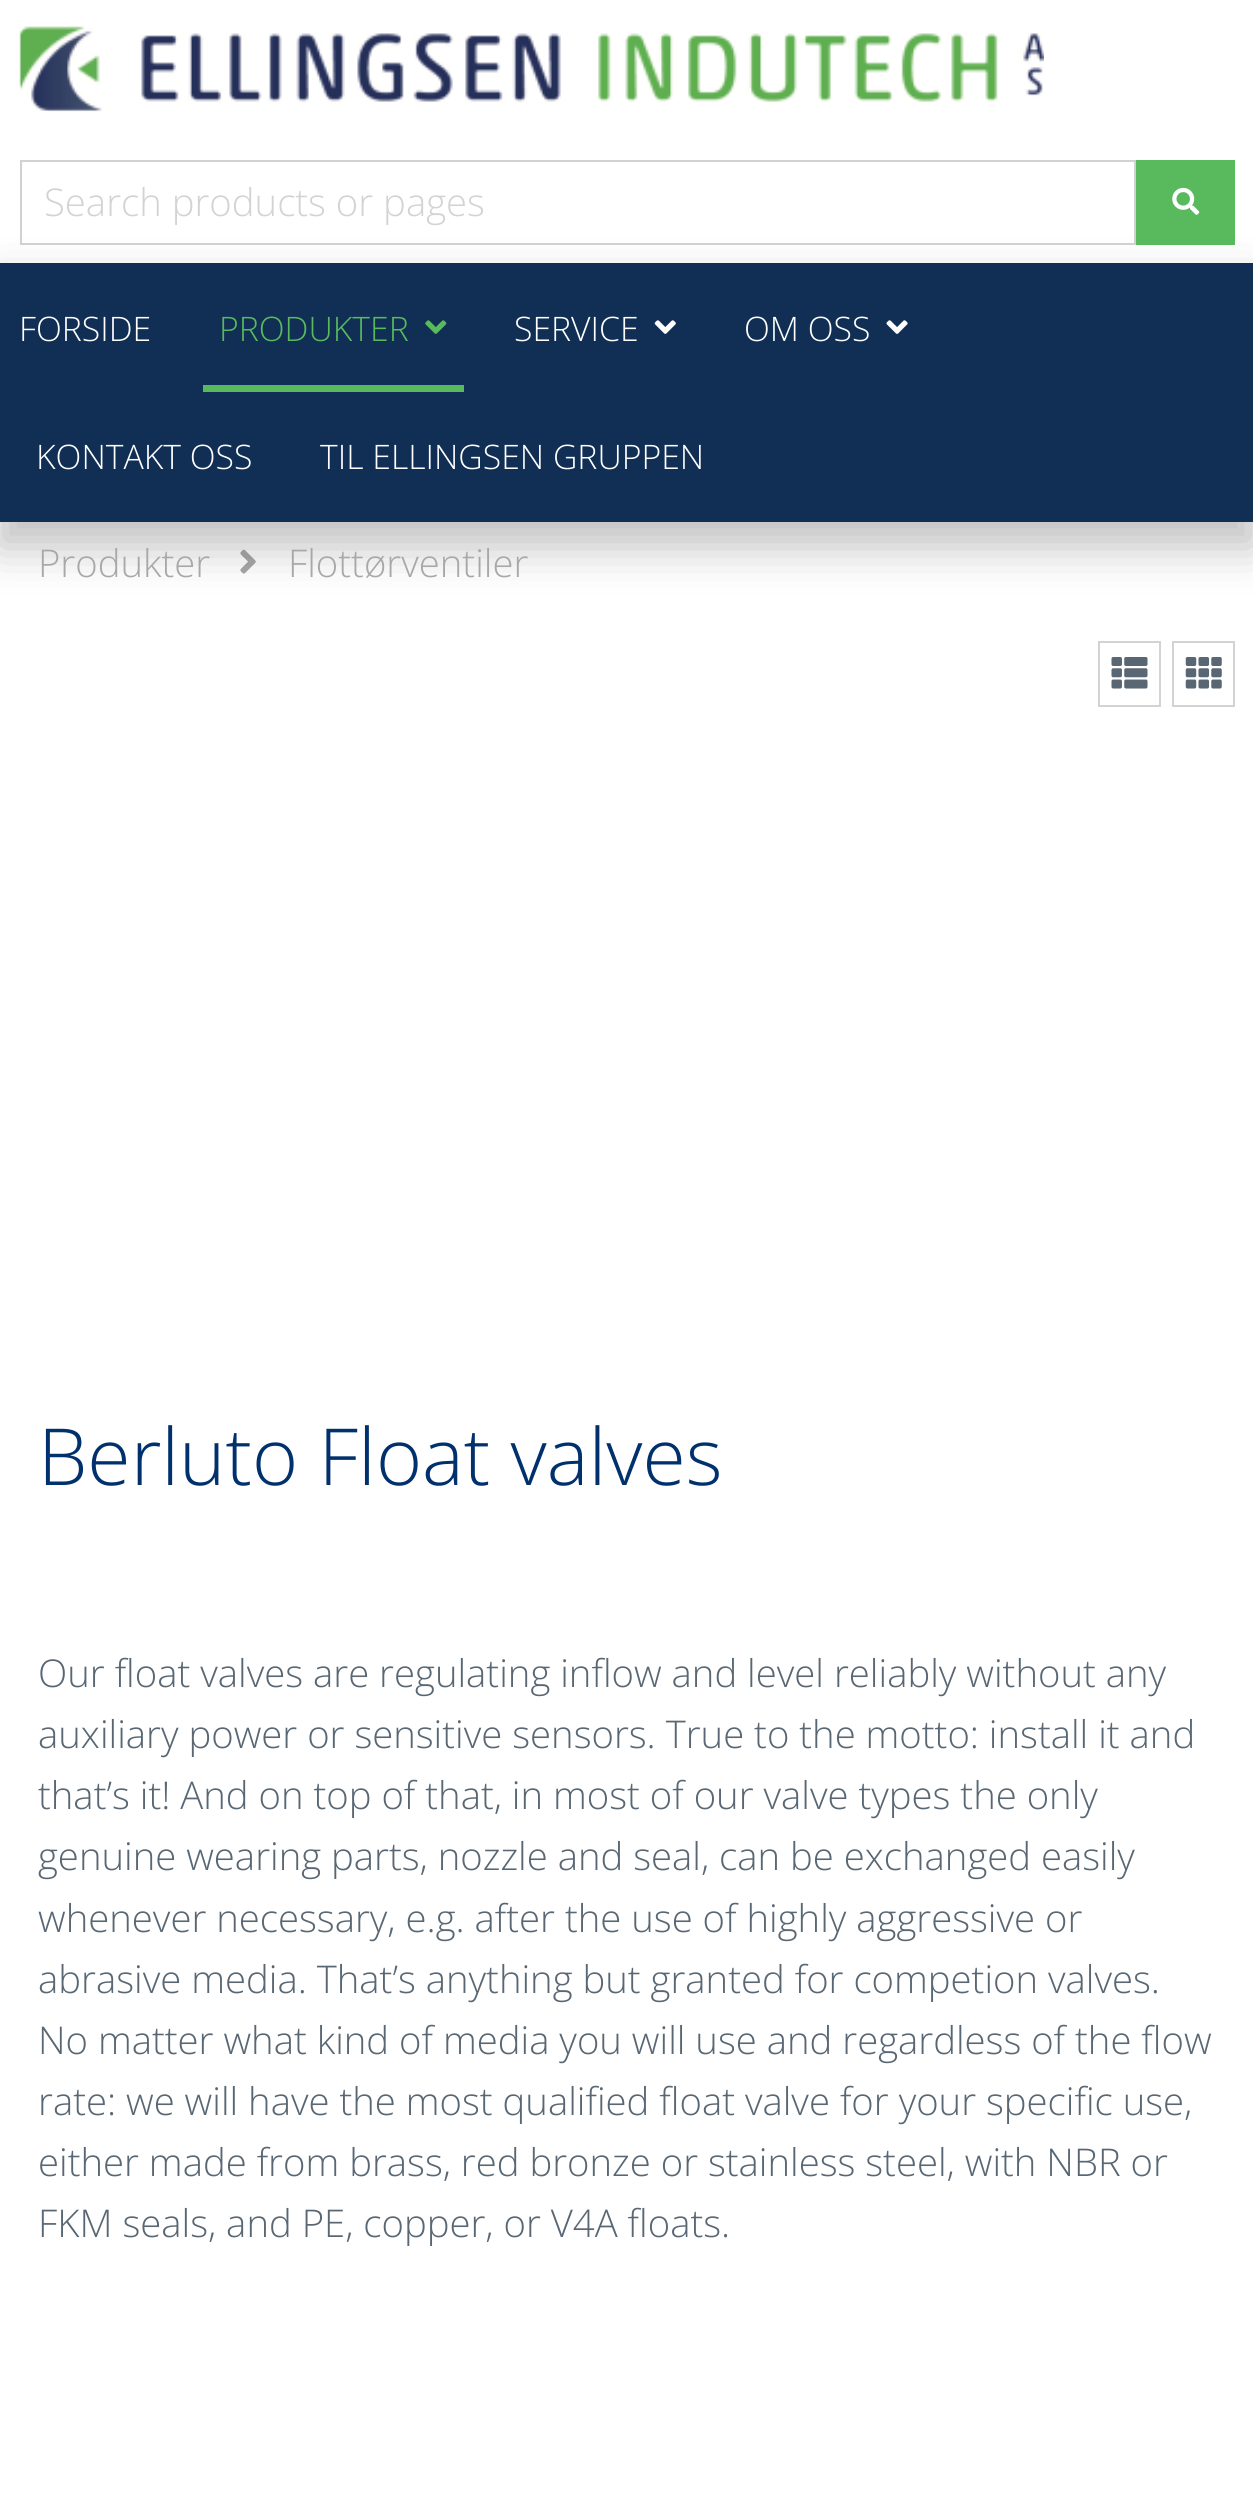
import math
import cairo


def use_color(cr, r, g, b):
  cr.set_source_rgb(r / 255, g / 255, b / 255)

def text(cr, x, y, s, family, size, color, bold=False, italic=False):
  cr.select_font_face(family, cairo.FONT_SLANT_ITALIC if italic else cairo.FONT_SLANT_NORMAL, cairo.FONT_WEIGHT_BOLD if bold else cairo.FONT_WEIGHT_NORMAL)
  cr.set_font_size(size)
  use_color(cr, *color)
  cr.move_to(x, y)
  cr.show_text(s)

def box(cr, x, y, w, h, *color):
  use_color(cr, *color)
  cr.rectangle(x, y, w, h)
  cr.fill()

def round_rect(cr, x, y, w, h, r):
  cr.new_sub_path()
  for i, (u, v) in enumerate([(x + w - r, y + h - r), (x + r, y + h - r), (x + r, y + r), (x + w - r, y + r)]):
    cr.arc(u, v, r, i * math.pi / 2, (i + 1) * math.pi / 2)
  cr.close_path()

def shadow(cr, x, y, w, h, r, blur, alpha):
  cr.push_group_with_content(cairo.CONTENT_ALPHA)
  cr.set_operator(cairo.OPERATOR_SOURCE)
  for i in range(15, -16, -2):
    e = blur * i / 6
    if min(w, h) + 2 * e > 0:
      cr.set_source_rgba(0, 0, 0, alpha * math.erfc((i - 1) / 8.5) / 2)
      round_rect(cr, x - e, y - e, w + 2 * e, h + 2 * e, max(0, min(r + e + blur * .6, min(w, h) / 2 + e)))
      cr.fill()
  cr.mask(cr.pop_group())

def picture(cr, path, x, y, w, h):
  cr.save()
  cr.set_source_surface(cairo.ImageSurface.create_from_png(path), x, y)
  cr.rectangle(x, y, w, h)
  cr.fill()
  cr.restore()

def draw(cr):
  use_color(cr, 255, 255, 255)
  cr.paint()
  picture(cr, "img_01.png", 19, 26, 1025, 86)
  picture(cr, "img_06.png", 240, 549, 16, 25)
  use_color(cr, 0, 0, 0)
  shadow(cr, -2, 284, 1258, 263, 0, 22.5, 0.25)
  cr.rectangle(21, 161, 1114, 83)
  use_color(cr, 209, 209, 209)
  cr.stroke()
  box(cr, 1136, 160, 99, 85, 88, 186, 93)
  picture(cr, "img_02.png", 1172, 187, 28, 28)
  box(cr, 0, 263, 1253, 259, 17, 47, 84)
  box(cr, 203, 385, 261, 7, 88, 186, 93)
  picture(cr, "img_03.png", 425, 320, 22, 14)
  picture(cr, "img_04.png", 654, 320, 22, 14)
  picture(cr, "img_05.png", 886, 320, 22, 14)
  cr.rectangle(1099, 642, 61, 64)
  use_color(cr, 211, 211, 211)
  cr.stroke()
  picture(cr, "img_07.png", 1111, 657, 37, 32)
  cr.rectangle(1173, 642, 61, 64)
  cr.stroke()
  picture(cr, "img_08.png", 1185, 657, 37, 32)
  text(cr, 44, 216, "Search products or pages", "Open Sans Light", 38.25, (211, 211, 211))
  text(cr, 19, 341, "FORSIDE", "Open Sans Light", 33.75, (255, 255, 255))
  text(cr, 219, 341, "PRODUKTER", "Open Sans Light", 33.75, (88, 186, 93))
  text(cr, 514, 341, "SERVICE", "Open Sans Light", 33.75, (255, 255, 255))
  text(cr, 744, 341, "OM OSS", "Open Sans Light", 33.75, (255, 255, 255))
  text(cr, 36, 469, "KONTAKT OSS", "Open Sans Light", 33.75, (255, 255, 255))
  text(cr, 320, 469, "TIL ELLINGSEN GRUPPEN", "Open Sans Light", 33.75, (255, 255, 255))
  text(cr, 38, 577, "Produkter", "Open Sans Light", 38.25, (168, 168, 168))
  text(cr, 288, 577, "Flottørventiler", "Open Sans Light", 38.25, (168, 168, 168))
  text(cr, 38, 1485, "Berluto Float valves", "Open Sans Light", 78.75, (0, 49, 109))
  text(cr, 38, 1687, "Our float valves are regulating inflow and level reliably without any", "Open Sans Light", 38.25, (88, 103, 115))
  text(cr, 38, 1748, "auxiliary power or sensitive sensors. True to the motto: install it and", "Open Sans Light", 38.25, (88, 103, 115))
  text(cr, 38, 1809, "that’s it! And on top of that, in most of our valve types the only", "Open Sans Light", 38.25, (88, 103, 115))
  text(cr, 38, 1870, "genuine wearing parts, nozzle and seal, can be exchanged easily", "Open Sans Light", 38.25, (88, 103, 115))
  text(cr, 38, 1932, "whenever necessary, e.g. after the use of highly aggressive or", "Open Sans Light", 38.25, (88, 103, 115))
  text(cr, 38, 1993, "abrasive media. That’s anything but granted for competion valves.", "Open Sans Light", 38.25, (88, 103, 115))
  text(cr, 38, 2054, "No matter what kind of media you will use and regardless of the flow", "Open Sans Light", 38.25, (88, 103, 115))
  text(cr, 38, 2115, "rate: we will have the most qualified float valve for your specific use,", "Open Sans Light", 38.25, (88, 103, 115))
  text(cr, 38, 2176, "either made from brass, red bronze or stainless steel, with NBR or", "Open Sans Light", 38.25, (88, 103, 115))
  text(cr, 38, 2237, "FKM seals, and PE, copper, or V4A floats.", "Open Sans Light", 38.25, (88, 103, 115))


surface = cairo.ImageSurface(cairo.FORMAT_RGB24, 1253, 2517)
cr = cairo.Context(surface)
options = cairo.FontOptions()
options.set_hint_metrics(cairo.HINT_METRICS_OFF)
options.set_hint_style(cairo.HINT_STYLE_NONE)
cr.set_font_options(options)
cr.set_miter_limit(4)
draw(cr)
surface.write_to_png("out.png")
